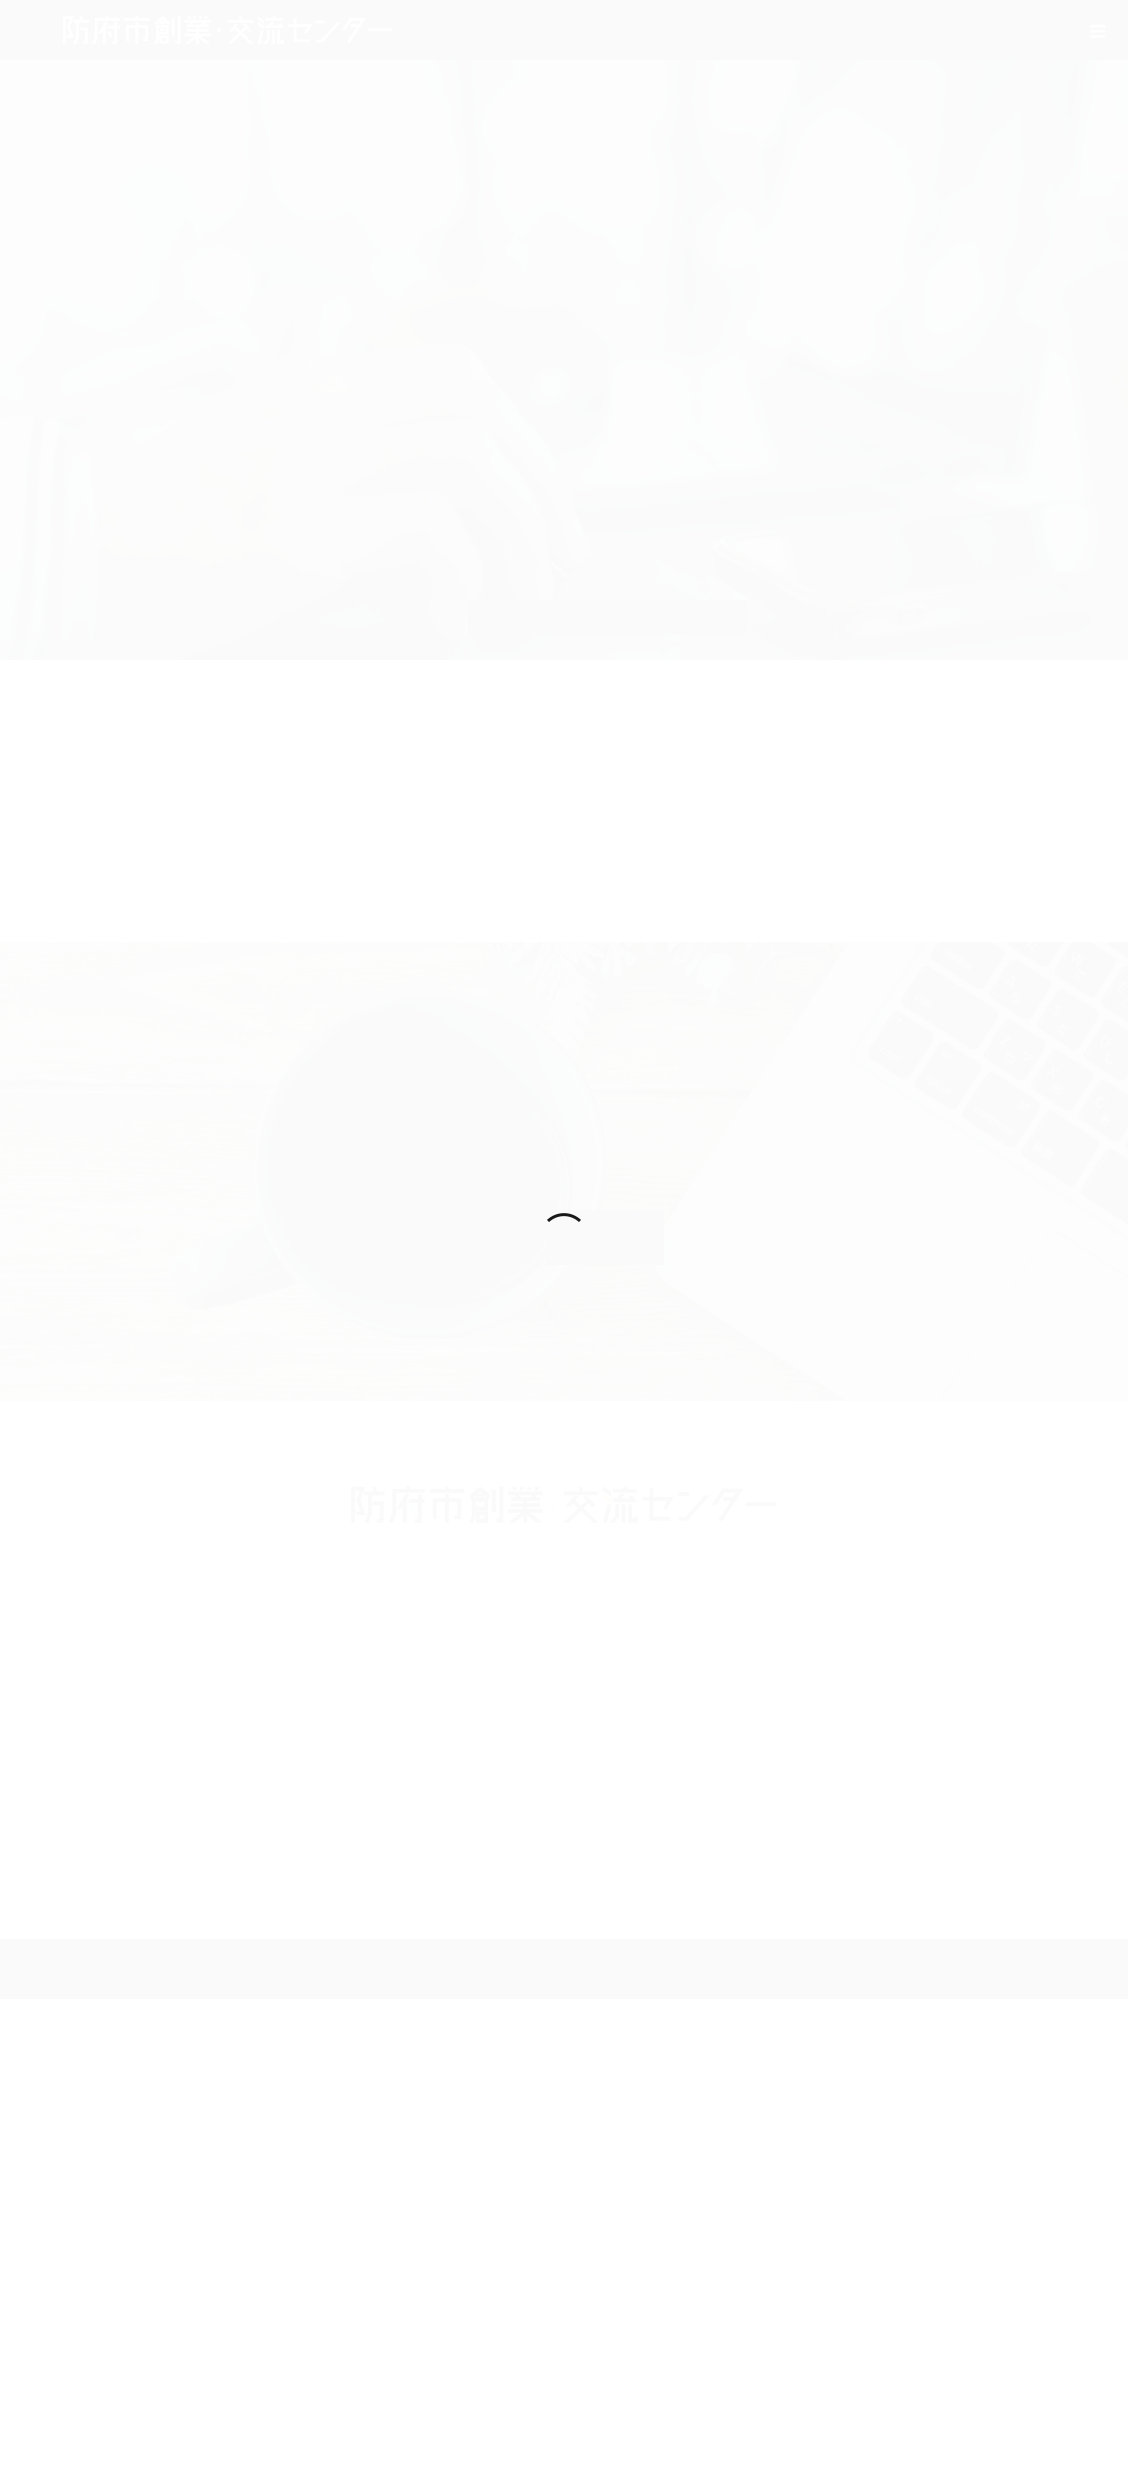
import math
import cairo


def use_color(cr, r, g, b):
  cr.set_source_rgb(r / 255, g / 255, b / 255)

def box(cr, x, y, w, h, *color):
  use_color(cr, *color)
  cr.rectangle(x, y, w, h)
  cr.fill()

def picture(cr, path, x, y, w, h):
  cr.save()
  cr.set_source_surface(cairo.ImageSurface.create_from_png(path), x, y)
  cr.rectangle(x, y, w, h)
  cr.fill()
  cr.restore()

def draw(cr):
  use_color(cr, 255, 255, 255)
  cr.paint()
  box(cr, 0, 0, 1128, 60, 250, 250, 250)
  picture(cr, "img_01.png", 63, 16, 329, 28)
  picture(cr, "img_02.png", 1090, 24, 16, 14)
  picture(cr, "img_03.png", 0, 60, 1128, 600)
  box(cr, 468, 600, 279, 35, 250, 250, 250)
  picture(cr, "img_04.png", 0, 942, 1128, 459)
  box(cr, 546, 1210, 118, 55, 250, 250, 250)
  picture(cr, "img_05.png", 351, 1486, 426, 37)
  box(cr, 0, 1939, 1128, 60, 250, 250, 250)
  cr.new_path()
  cr.move_to(548, 1221)
  cr.curve_to(557, 1212.5, 571, 1212.5, 580, 1221)
  use_color(cr, 25, 25, 25)
  cr.set_line_width(3)
  cr.stroke()


surface = cairo.ImageSurface(cairo.FORMAT_RGB24, 1128, 2474)
cr = cairo.Context(surface)
options = cairo.FontOptions()
options.set_hint_metrics(cairo.HINT_METRICS_OFF)
options.set_hint_style(cairo.HINT_STYLE_NONE)
cr.set_font_options(options)
cr.set_miter_limit(4)
draw(cr)
surface.write_to_png("out.png")
